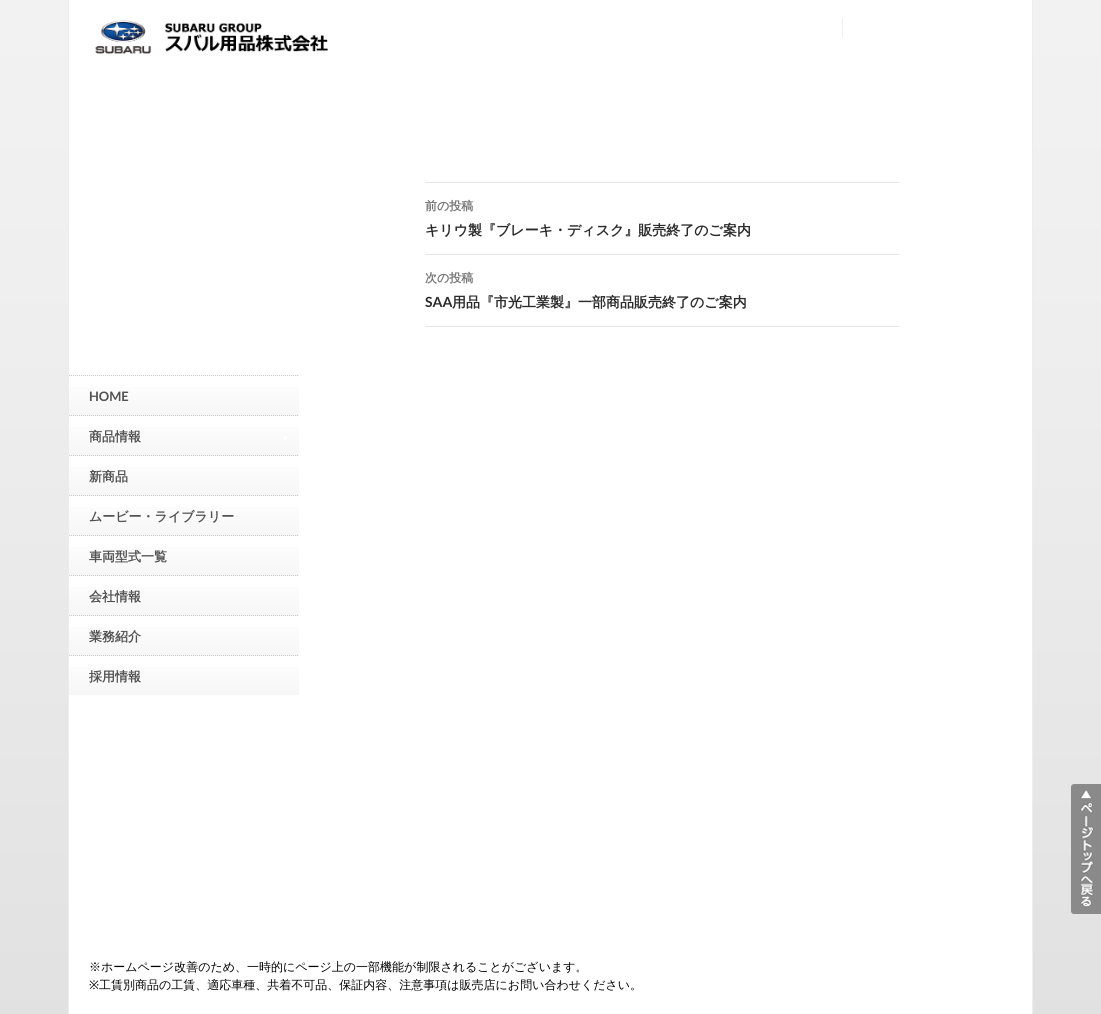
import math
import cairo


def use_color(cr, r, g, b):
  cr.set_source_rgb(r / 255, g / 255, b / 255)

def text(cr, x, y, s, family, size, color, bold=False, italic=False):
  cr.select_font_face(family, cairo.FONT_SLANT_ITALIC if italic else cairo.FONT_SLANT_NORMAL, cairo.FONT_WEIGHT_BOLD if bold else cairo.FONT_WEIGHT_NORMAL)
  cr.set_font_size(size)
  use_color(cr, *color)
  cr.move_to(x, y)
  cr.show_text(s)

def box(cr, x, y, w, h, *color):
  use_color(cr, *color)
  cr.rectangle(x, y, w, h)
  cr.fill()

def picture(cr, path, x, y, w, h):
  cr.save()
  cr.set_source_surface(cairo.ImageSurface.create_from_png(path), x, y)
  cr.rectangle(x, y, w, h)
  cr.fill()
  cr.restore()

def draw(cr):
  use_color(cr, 255, 255, 255)
  cr.paint()
  picture(cr, "img_01.png", 0, 0, 1101, 1014)
  box(cr, 69, 0, 963, 1014, 255, 255, 255)
  box(cr, 1032, 0, 1, 1014, 237, 237, 237)
  box(cr, 68, 0, 1, 1014, 237, 237, 237)
  picture(cr, "img_02.png", 95, 20, 233, 34)
  box(cr, 842, 18, 1, 19, 239, 239, 239)
  box(cr, 425, 182, 474, 1, 230, 230, 230)
  box(cr, 425, 254, 474, 1, 230, 230, 230)
  box(cr, 425, 326, 474, 1, 230, 230, 230)
  gradient = cairo.LinearGradient(184, 337, 184, 376)
  gradient.add_color_stop_rgba(0, 1, 1, 1, 1)
  gradient.add_color_stop_rgba(1, 0.965, 0.965, 0.965, 1)
  cr.set_source(gradient)
  cr.rectangle(69, 375, 230, 1)
  cr.fill()
  gradient = cairo.LinearGradient(184, 376, 184, 415)
  gradient.add_color_stop_rgba(0, 1, 1, 1, 1)
  gradient.add_color_stop_rgba(1, 0.965, 0.965, 0.965, 1)
  cr.set_source(gradient)
  cr.rectangle(69, 387, 230, 28)
  cr.fill()
  cr.new_path()
  cr.move_to(69, 375.5)
  cr.line_to(299, 375.5)
  use_color(cr, 204, 204, 204)
  cr.set_line_width(1)
  cr.set_dash([1, 1])
  cr.stroke()
  gradient = cairo.LinearGradient(184, 377, 184, 416)
  gradient.add_color_stop_rgba(0, 1, 1, 1, 1)
  gradient.add_color_stop_rgba(1, 0.965, 0.965, 0.965, 1)
  cr.set_source(gradient)
  cr.rectangle(69, 415, 230, 1)
  cr.fill()
  gradient = cairo.LinearGradient(184, 416, 184, 455)
  gradient.add_color_stop_rgba(0, 1, 1, 1, 1)
  gradient.add_color_stop_rgba(1, 0.965, 0.965, 0.965, 1)
  cr.set_source(gradient)
  cr.rectangle(69, 427, 230, 28)
  cr.fill()
  cr.new_path()
  cr.move_to(69, 415.5)
  cr.line_to(299, 415.5)
  use_color(cr, 204, 204, 204)
  cr.stroke()
  picture(cr, "img_03.png", 284, 436, 4, 4)
  gradient = cairo.LinearGradient(184, 417, 184, 456)
  gradient.add_color_stop_rgba(0, 1, 1, 1, 1)
  gradient.add_color_stop_rgba(1, 0.965, 0.965, 0.965, 1)
  cr.set_source(gradient)
  cr.rectangle(69, 455, 230, 1)
  cr.fill()
  gradient = cairo.LinearGradient(184, 456, 184, 495)
  gradient.add_color_stop_rgba(0, 1, 1, 1, 1)
  gradient.add_color_stop_rgba(1, 0.965, 0.965, 0.965, 1)
  cr.set_source(gradient)
  cr.rectangle(69, 467, 230, 28)
  cr.fill()
  cr.new_path()
  cr.move_to(69, 455.5)
  cr.line_to(299, 455.5)
  use_color(cr, 204, 204, 204)
  cr.stroke()
  gradient = cairo.LinearGradient(184, 457, 184, 496)
  gradient.add_color_stop_rgba(0, 1, 1, 1, 1)
  gradient.add_color_stop_rgba(1, 0.965, 0.965, 0.965, 1)
  cr.set_source(gradient)
  cr.rectangle(69, 495, 230, 1)
  cr.fill()
  gradient = cairo.LinearGradient(184, 496, 184, 535)
  gradient.add_color_stop_rgba(0, 1, 1, 1, 1)
  gradient.add_color_stop_rgba(1, 0.965, 0.965, 0.965, 1)
  cr.set_source(gradient)
  cr.rectangle(69, 507, 230, 28)
  cr.fill()
  cr.new_path()
  cr.move_to(69, 495.5)
  cr.line_to(299, 495.5)
  use_color(cr, 204, 204, 204)
  cr.stroke()
  gradient = cairo.LinearGradient(184, 497, 184, 536)
  gradient.add_color_stop_rgba(0, 1, 1, 1, 1)
  gradient.add_color_stop_rgba(1, 0.965, 0.965, 0.965, 1)
  cr.set_source(gradient)
  cr.rectangle(69, 535, 230, 1)
  cr.fill()
  gradient = cairo.LinearGradient(184, 536, 184, 575)
  gradient.add_color_stop_rgba(0, 1, 1, 1, 1)
  gradient.add_color_stop_rgba(1, 0.965, 0.965, 0.965, 1)
  cr.set_source(gradient)
  cr.rectangle(69, 547, 230, 28)
  cr.fill()
  cr.new_path()
  cr.move_to(69, 535.5)
  cr.line_to(299, 535.5)
  use_color(cr, 204, 204, 204)
  cr.stroke()
  gradient = cairo.LinearGradient(184, 537, 184, 576)
  gradient.add_color_stop_rgba(0, 1, 1, 1, 1)
  gradient.add_color_stop_rgba(1, 0.965, 0.965, 0.965, 1)
  cr.set_source(gradient)
  cr.rectangle(69, 575, 230, 1)
  cr.fill()
  gradient = cairo.LinearGradient(184, 576, 184, 615)
  gradient.add_color_stop_rgba(0, 1, 1, 1, 1)
  gradient.add_color_stop_rgba(1, 0.965, 0.965, 0.965, 1)
  cr.set_source(gradient)
  cr.rectangle(69, 587, 230, 28)
  cr.fill()
  cr.new_path()
  cr.move_to(69, 575.5)
  cr.line_to(299, 575.5)
  use_color(cr, 204, 204, 204)
  cr.stroke()
  gradient = cairo.LinearGradient(184, 577, 184, 616)
  gradient.add_color_stop_rgba(0, 1, 1, 1, 1)
  gradient.add_color_stop_rgba(1, 0.965, 0.965, 0.965, 1)
  cr.set_source(gradient)
  cr.rectangle(69, 615, 230, 1)
  cr.fill()
  gradient = cairo.LinearGradient(184, 616, 184, 655)
  gradient.add_color_stop_rgba(0, 1, 1, 1, 1)
  gradient.add_color_stop_rgba(1, 0.965, 0.965, 0.965, 1)
  cr.set_source(gradient)
  cr.rectangle(69, 627, 230, 28)
  cr.fill()
  cr.new_path()
  cr.move_to(69, 615.5)
  cr.line_to(299, 615.5)
  use_color(cr, 204, 204, 204)
  cr.stroke()
  gradient = cairo.LinearGradient(184, 617, 184, 656)
  gradient.add_color_stop_rgba(0, 1, 1, 1, 1)
  gradient.add_color_stop_rgba(1, 0.965, 0.965, 0.965, 1)
  cr.set_source(gradient)
  cr.rectangle(69, 655, 230, 1)
  cr.fill()
  gradient = cairo.LinearGradient(184, 656, 184, 695)
  gradient.add_color_stop_rgba(0, 1, 1, 1, 1)
  gradient.add_color_stop_rgba(1, 0.965, 0.965, 0.965, 1)
  cr.set_source(gradient)
  cr.rectangle(69, 667, 230, 28)
  cr.fill()
  cr.new_path()
  cr.move_to(69, 655.5)
  cr.line_to(299, 655.5)
  use_color(cr, 204, 204, 204)
  cr.stroke()
  picture(cr, "img_04.png", 1071, 784, 30, 130)
  text(cr, 425, 210, "前の投稿", "WenQuanYi Zen Hei", 12, (118, 118, 118), bold=True)
  text(cr, 425, 235, "キリウ製『ブレーキ・ディスク』販売終了のご案内", "WenQuanYi Zen Hei", 14, (43, 43, 43), bold=True)
  text(cr, 425, 282, "次の投稿", "WenQuanYi Zen Hei", 12, (118, 118, 118), bold=True)
  text(cr, 425, 307, "SAA", "Lato", 14, (43, 43, 43), bold=True)
  text(cr, 452, 307, "用品『市光工業製』一部商品販売終了のご案内", "WenQuanYi Zen Hei", 14, (43, 43, 43), bold=True)
  text(cr, 89, 401, "HOME", "Lato", 13, (82, 82, 82), bold=True)
  text(cr, 89, 441, "商品情報", "WenQuanYi Zen Hei", 13, (82, 82, 82), bold=True)
  text(cr, 89, 481, "新商品", "WenQuanYi Zen Hei", 13, (82, 82, 82), bold=True)
  text(cr, 89, 521, "ムービー・ライブラリー", "WenQuanYi Zen Hei", 13, (82, 82, 82), bold=True)
  text(cr, 89, 561, "車両型式一覧", "WenQuanYi Zen Hei", 13, (82, 82, 82), bold=True)
  text(cr, 89, 601, "会社情報", "WenQuanYi Zen Hei", 13, (82, 82, 82), bold=True)
  text(cr, 89, 641, "業務紹介", "WenQuanYi Zen Hei", 13, (82, 82, 82), bold=True)
  text(cr, 89, 681, "採用情報", "WenQuanYi Zen Hei", 13, (82, 82, 82), bold=True)
  text(cr, 89, 971, "※ホームページ改善のため、一時的にページ上の一部機能が制限されることがございます。", "WenQuanYi Zen Hei Medium", 12, (0, 0, 0))
  text(cr, 89, 989, "※", "Noto Sans", 12, (0, 0, 0))
  text(cr, 99, 989, "工賃別商品の工賃、適応車種、共着不可品、保証内容、注意事項は販売店にお問い合わせください。", "WenQuanYi Zen Hei Medium", 12, (0, 0, 0))


surface = cairo.ImageSurface(cairo.FORMAT_RGB24, 1101, 1014)
cr = cairo.Context(surface)
options = cairo.FontOptions()
options.set_hint_metrics(cairo.HINT_METRICS_OFF)
options.set_hint_style(cairo.HINT_STYLE_NONE)
cr.set_font_options(options)
cr.set_miter_limit(4)
draw(cr)
surface.write_to_png("out.png")
